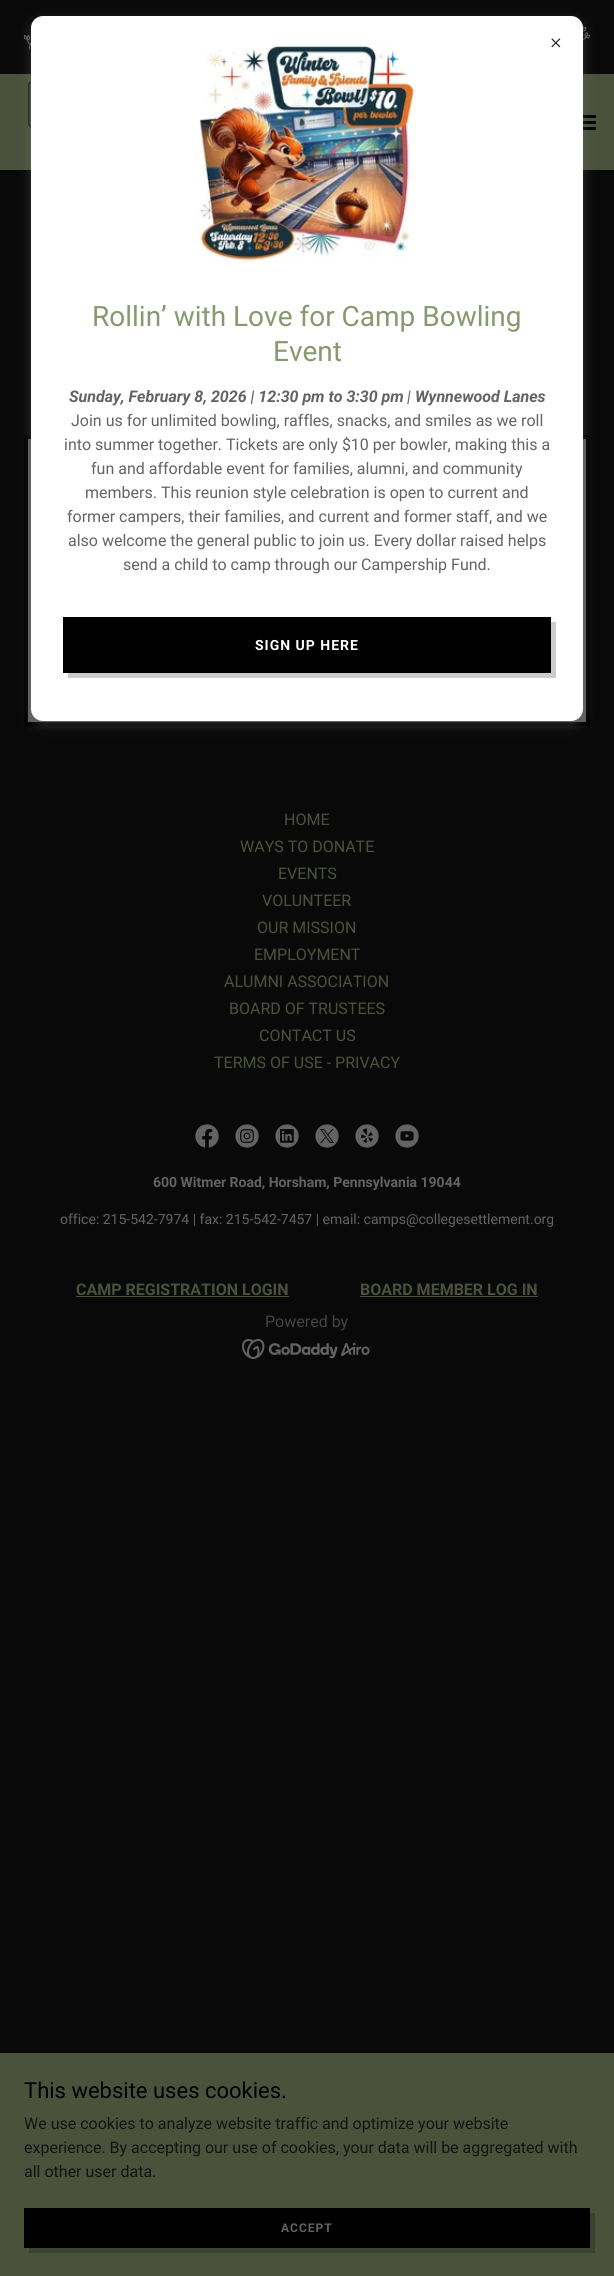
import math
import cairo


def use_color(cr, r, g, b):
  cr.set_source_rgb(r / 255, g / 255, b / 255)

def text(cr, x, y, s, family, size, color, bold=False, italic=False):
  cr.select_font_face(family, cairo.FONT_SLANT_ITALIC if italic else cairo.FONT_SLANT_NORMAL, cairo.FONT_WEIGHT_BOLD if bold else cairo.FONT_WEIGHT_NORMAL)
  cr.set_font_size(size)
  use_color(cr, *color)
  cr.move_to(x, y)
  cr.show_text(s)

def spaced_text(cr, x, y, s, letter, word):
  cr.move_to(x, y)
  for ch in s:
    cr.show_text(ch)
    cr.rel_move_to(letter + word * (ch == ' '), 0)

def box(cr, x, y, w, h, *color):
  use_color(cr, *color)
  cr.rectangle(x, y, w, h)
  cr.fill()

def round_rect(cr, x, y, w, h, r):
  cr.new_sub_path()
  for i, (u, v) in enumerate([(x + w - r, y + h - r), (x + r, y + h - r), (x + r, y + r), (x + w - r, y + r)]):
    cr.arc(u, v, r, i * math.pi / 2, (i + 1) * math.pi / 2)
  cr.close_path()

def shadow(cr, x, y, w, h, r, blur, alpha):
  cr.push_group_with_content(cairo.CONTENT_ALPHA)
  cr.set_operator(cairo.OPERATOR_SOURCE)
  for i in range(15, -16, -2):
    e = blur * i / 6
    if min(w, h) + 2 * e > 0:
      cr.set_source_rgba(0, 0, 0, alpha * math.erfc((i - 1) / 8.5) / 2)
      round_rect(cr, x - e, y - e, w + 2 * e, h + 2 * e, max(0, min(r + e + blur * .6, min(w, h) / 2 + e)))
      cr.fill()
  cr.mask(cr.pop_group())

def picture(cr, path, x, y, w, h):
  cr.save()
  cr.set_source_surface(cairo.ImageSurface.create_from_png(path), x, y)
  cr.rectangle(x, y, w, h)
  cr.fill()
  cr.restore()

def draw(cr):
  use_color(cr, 9, 9, 9)
  cr.paint()
  box(cr, 0, 74, 614, 96, 74, 82, 60)
  picture(cr, "img_01.png", 582, 24, 8, 17)
  picture(cr, "img_02.png", 24, 35, 7, 15)
  picture(cr, "img_03.png", 28, 82, 3, 46)
  box(cr, 577, 115, 19, 3, 0, 0, 0)
  box(cr, 577, 121, 19, 3, 0, 0, 0)
  box(cr, 577, 127, 19, 3, 0, 0, 0)
  box(cr, 24, 435, 566, 291, 0, 0, 0)
  box(cr, 28, 439, 558, 283, 92, 92, 92)
  use_color(cr, 117, 117, 117)
  shadow(cr, 31, 20, 552, 705, 12, 6, 0.4)
  use_color(cr, 255, 255, 255)
  round_rect(cr, 31, 16, 552, 705, 12)
  cr.fill()
  picture(cr, "img_04.png", 551, 38, 10, 10)
  picture(cr, "img_05.png", 198, 44, 219, 218)
  box(cr, 63, 617, 488, 56, 0, 0, 0)
  use_color(cr, 204, 204, 204)
  cr.new_path()
  cr.move_to(68, 673)
  cr.line_to(68, 678)
  cr.line_to(556, 678)
  cr.line_to(556, 622)
  cr.line_to(551, 622)
  cr.line_to(551, 673)
  cr.close_path()
  cr.fill()
  picture(cr, "img_06.png", 195, 1124, 24, 24)
  picture(cr, "img_07.png", 235, 1124, 24, 24)
  picture(cr, "img_08.png", 275, 1124, 24, 24)
  picture(cr, "img_09.png", 315, 1124, 24, 24)
  picture(cr, "img_10.png", 355, 1124, 24, 24)
  picture(cr, "img_11.png", 395, 1124, 24, 24)
  box(cr, 76, 1296, 213, 1, 74, 82, 60)
  box(cr, 360, 1296, 178, 1, 74, 82, 60)
  picture(cr, "img_12.png", 242, 1339, 130, 20)
  box(cr, 0, 2053, 614, 223, 74, 82, 60)
  box(cr, 24, 2208, 566, 40, 0, 0, 0)
  use_color(cr, 59, 66, 48)
  cr.new_path()
  cr.move_to(29, 2248)
  cr.line_to(29, 2253)
  cr.line_to(595, 2253)
  cr.line_to(595, 2213)
  cr.line_to(590, 2213)
  cr.line_to(590, 2248)
  cr.close_path()
  cr.fill()
  text(cr, 92, 326, "Rollin’ with Love for Camp Bowling", "Roboto", 28, (136, 153, 112))
  text(cr, 273, 361, "Event", "Roboto", 28, (136, 153, 112))
  text(cr, 69, 402, "Sunday, February 8, 2026 | 12:30 pm to 3:30 pm", "Roboto", 16, (99, 99, 99), bold=True, italic=True)
  text(cr, 407, 402, "|", "Roboto", 16, (99, 99, 99), italic=True)
  text(cr, 415, 402, "Wynnewood Lanes", "Roboto", 16, (99, 99, 99), bold=True, italic=True)
  text(cr, 71, 426, "Join us for unlimited bowling, raffles, snacks, and smiles as we roll", "Roboto", 16, (99, 99, 99))
  text(cr, 64, 450, "into summer together. Tickets are only $10 per bowler, making this a", "Roboto", 16, (99, 99, 99))
  text(cr, 91, 474, "fun and affordable event for families, alumni, and community", "Roboto", 16, (99, 99, 99))
  text(cr, 85, 498, "members. This reunion style celebration is open to current and", "Roboto", 16, (99, 99, 99))
  text(cr, 67, 522, "former campers, their families, and current and former staff, and we", "Roboto", 16, (99, 99, 99))
  text(cr, 68, 546, "also welcome the general public to join us. Every dollar raised helps", "Roboto", 16, (99, 99, 99))
  text(cr, 123, 570, "send a child to camp through our Campership Fund.", "Roboto", 16, (99, 99, 99))
  cr.select_font_face("Roboto", cairo.FONT_SLANT_NORMAL, cairo.FONT_WEIGHT_BOLD)
  cr.set_font_size(14)
  use_color(cr, 255, 255, 255)
  spaced_text(cr, 255, 650, "SIGN UP HERE", 1, 0)
  text(cr, 284, 825, "HOME", "Roboto", 16, (74, 82, 60))
  text(cr, 240, 852, "WAYS TO DONATE", "Roboto", 16, (74, 82, 60))
  text(cr, 278, 879, "EVENTS", "Roboto", 16, (74, 82, 60))
  text(cr, 262, 906, "VOLUNTEER", "Roboto", 16, (74, 82, 60))
  text(cr, 257, 933, "OUR MISSION", "Roboto", 16, (74, 82, 60))
  text(cr, 254, 960, "EMPLOYMENT", "Roboto", 16, (74, 82, 60))
  text(cr, 224, 987, "ALUMNI ASSOCIATION", "Roboto", 16, (74, 82, 60))
  text(cr, 229, 1014, "BOARD OF TRUSTEES", "Roboto", 16, (74, 82, 60))
  text(cr, 259, 1041, "CONTACT US", "Roboto", 16, (74, 82, 60))
  text(cr, 214, 1068, "TERMS OF USE - PRIVACY", "Roboto", 16, (74, 82, 60))
  text(cr, 153, 1187, "600 Witmer Road, Horsham, Pennsylvania 19044", "Roboto", 14, (99, 99, 99), bold=True)
  text(cr, 60, 1224, "office: 215-542-7974 | fax: 215-542-7457 | email: camps@collegesettlement.org", "Roboto", 14, (99, 99, 99))
  text(cr, 76, 1295, "CAMP REGISTRATION LOGIN", "Roboto", 16, (74, 82, 60), bold=True)
  text(cr, 360, 1295, "BOARD MEMBER LOG IN", "Roboto", 16, (74, 82, 60), bold=True)
  text(cr, 265, 1327, "Powered by", "Roboto", 16, (68, 68, 68))
  text(cr, 24, 2098, "This website uses cookies.", "Roboto", 22, (0, 0, 0))
  text(cr, 24, 2129, "We use cookies to analyze website traffic and optimize your website", "Roboto", 16, (19, 20, 18))
  text(cr, 24, 2153, "experience. By accepting our use of cookies, your data will be aggregated with", "Roboto", 16, (19, 20, 18))
  text(cr, 24, 2177, "all other user data.", "Roboto", 16, (19, 20, 18))
  cr.select_font_face("Roboto", cairo.FONT_SLANT_NORMAL, cairo.FONT_WEIGHT_BOLD)
  cr.set_font_size(12)
  use_color(cr, 99, 99, 99)
  spaced_text(cr, 281, 2232, "ACCEPT", 1, 0)


surface = cairo.ImageSurface(cairo.FORMAT_RGB24, 614, 2276)
cr = cairo.Context(surface)
options = cairo.FontOptions()
options.set_hint_metrics(cairo.HINT_METRICS_OFF)
options.set_hint_style(cairo.HINT_STYLE_NONE)
cr.set_font_options(options)
cr.set_miter_limit(4)
draw(cr)
surface.write_to_png("out.png")
